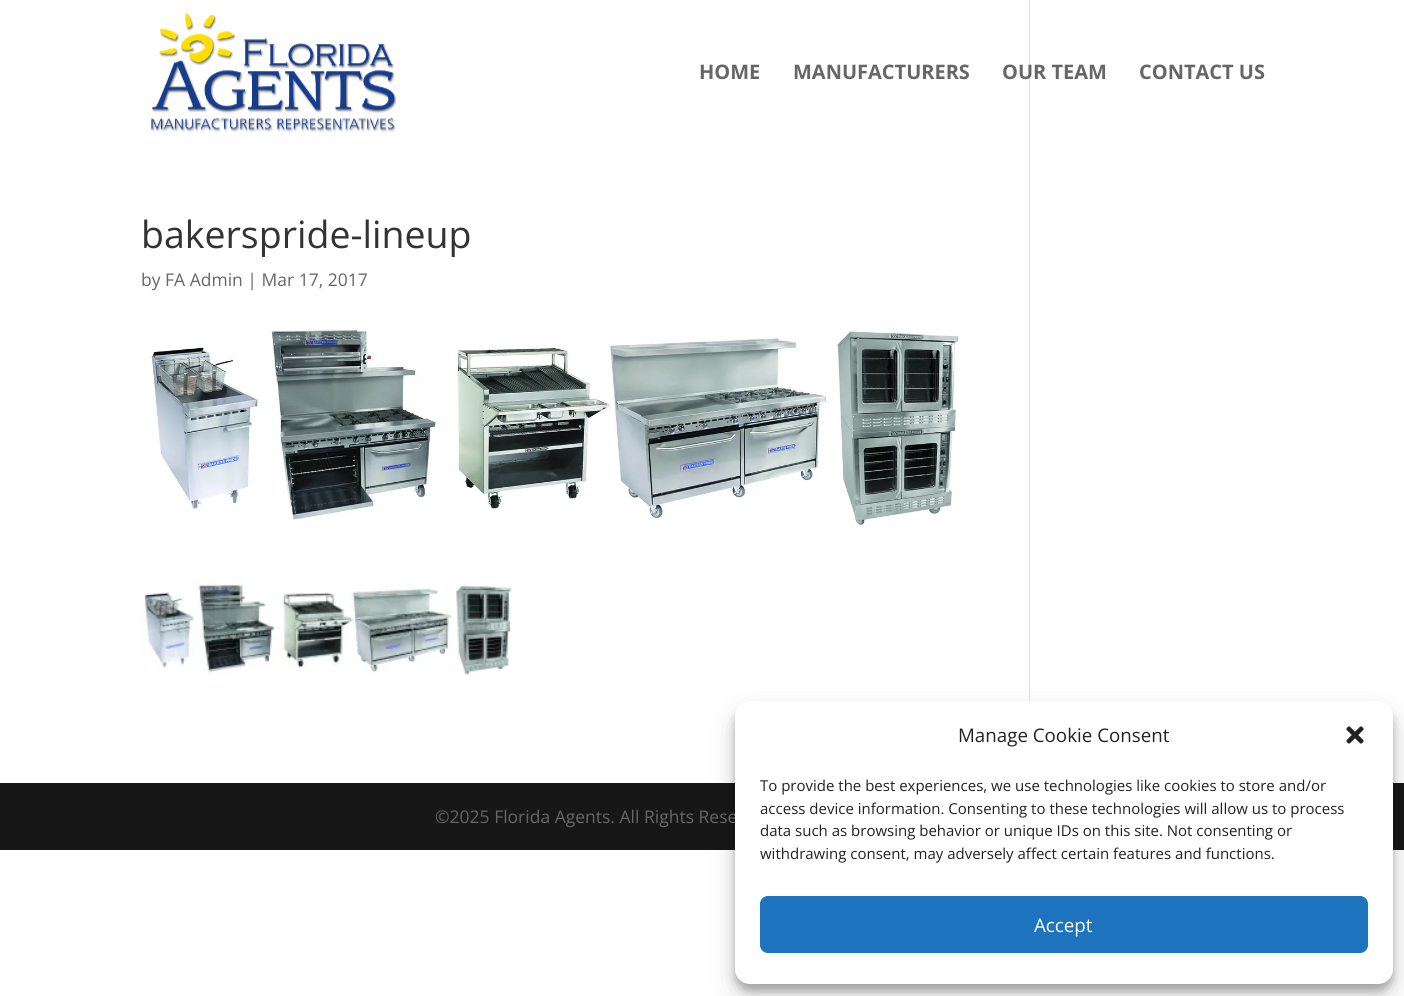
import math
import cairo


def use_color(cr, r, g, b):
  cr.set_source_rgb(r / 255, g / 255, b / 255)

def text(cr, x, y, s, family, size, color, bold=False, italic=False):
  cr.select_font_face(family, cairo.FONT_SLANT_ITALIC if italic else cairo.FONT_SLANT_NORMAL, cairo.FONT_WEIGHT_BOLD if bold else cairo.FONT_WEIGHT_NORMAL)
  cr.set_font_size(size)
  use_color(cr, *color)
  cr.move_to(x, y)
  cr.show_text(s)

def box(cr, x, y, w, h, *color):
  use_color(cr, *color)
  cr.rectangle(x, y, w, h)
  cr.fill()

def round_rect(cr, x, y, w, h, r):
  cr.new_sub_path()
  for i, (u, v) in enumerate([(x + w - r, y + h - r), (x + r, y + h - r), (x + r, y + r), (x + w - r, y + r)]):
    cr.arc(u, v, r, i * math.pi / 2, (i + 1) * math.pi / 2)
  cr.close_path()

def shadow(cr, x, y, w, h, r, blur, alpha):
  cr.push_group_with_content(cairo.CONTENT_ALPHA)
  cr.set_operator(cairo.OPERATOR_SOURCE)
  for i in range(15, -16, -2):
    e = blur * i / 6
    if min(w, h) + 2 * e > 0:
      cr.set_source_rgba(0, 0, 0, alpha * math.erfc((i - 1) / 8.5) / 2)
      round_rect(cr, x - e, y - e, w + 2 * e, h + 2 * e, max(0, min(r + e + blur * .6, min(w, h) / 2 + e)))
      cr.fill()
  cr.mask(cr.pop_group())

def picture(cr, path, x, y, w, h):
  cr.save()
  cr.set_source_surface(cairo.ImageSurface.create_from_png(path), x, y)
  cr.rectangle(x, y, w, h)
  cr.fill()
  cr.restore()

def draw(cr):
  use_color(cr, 255, 255, 255)
  cr.paint()
  picture(cr, "img_01.png", 151, 13, 246, 119)
  picture(cr, "img_02.png", 151, 329, 809, 197)
  picture(cr, "img_03.png", 140, 581, 372, 95)
  box(cr, 1029, 0, 1, 701, 226, 226, 226)
  box(cr, 0, 783, 1404, 67, 23, 23, 23)
  use_color(cr, 0, 0, 0)
  shadow(cr, 735, 709, 658, 282, 15, 4, 0.23)
  shadow(cr, 735, 714, 658, 282, 15, 12.5, 0.19)
  text(cr, 699, 79, "HOME", "Open Sans", 20, (102, 102, 102), bold=True)
  text(cr, 793, 79, "MANUFACTURERS", "Open Sans", 20, (102, 102, 102), bold=True)
  text(cr, 1002, 79, "OUR TEAM", "Open Sans", 20, (102, 102, 102), bold=True)
  text(cr, 1139, 79, "CONTACT US", "Open Sans", 20, (102, 102, 102), bold=True)
  text(cr, 141, 248, "bakerspride-lineup", "Open Sans", 37.5, (51, 51, 51))
  text(cr, 141, 286, "by FA Admin | Mar 17, 2017", "Open Sans", 17.5, (102, 102, 102))
  text(cr, 435, 823, "©2025 Florida Agents. All Rights Rese", "Open Sans", 17.5, (102, 102, 102))
  use_color(cr, 255, 255, 255)
  round_rect(cr, 735, 701, 658, 283, 15)
  cr.fill()
  text(cr, 958, 742, "Manage Cookie Consent", "Open Sans", 18.75, (34, 34, 34))
  picture(cr, "img_04.png", 1346, 726, 18, 18)
  text(cr, 760, 791, "To provide the best experiences, we use technologies like cookies to store and/or", "Open Sans", 15, (34, 34, 34))
  text(cr, 760, 814, "access device information. Consenting to these technologies will allow us to process", "Open Sans", 15, (34, 34, 34))
  text(cr, 760, 836, "data such as browsing behavior or unique IDs on this site. Not consenting or", "Open Sans", 15, (34, 34, 34))
  text(cr, 760, 859, "withdrawing consent, may adversely affect certain features and functions.", "Open Sans", 15, (34, 34, 34))
  use_color(cr, 30, 115, 190)
  round_rect(cr, 760.5, 896.5, 607, 56, 7.5)
  cr.fill_preserve()
  cr.set_line_width(1)
  cr.stroke()
  text(cr, 1034, 932, "Accept", "Open Sans", 18.75, (255, 255, 255))


surface = cairo.ImageSurface(cairo.FORMAT_RGB24, 1404, 996)
cr = cairo.Context(surface)
options = cairo.FontOptions()
options.set_hint_metrics(cairo.HINT_METRICS_OFF)
options.set_hint_style(cairo.HINT_STYLE_NONE)
cr.set_font_options(options)
cr.set_miter_limit(4)
draw(cr)
surface.write_to_png("out.png")
